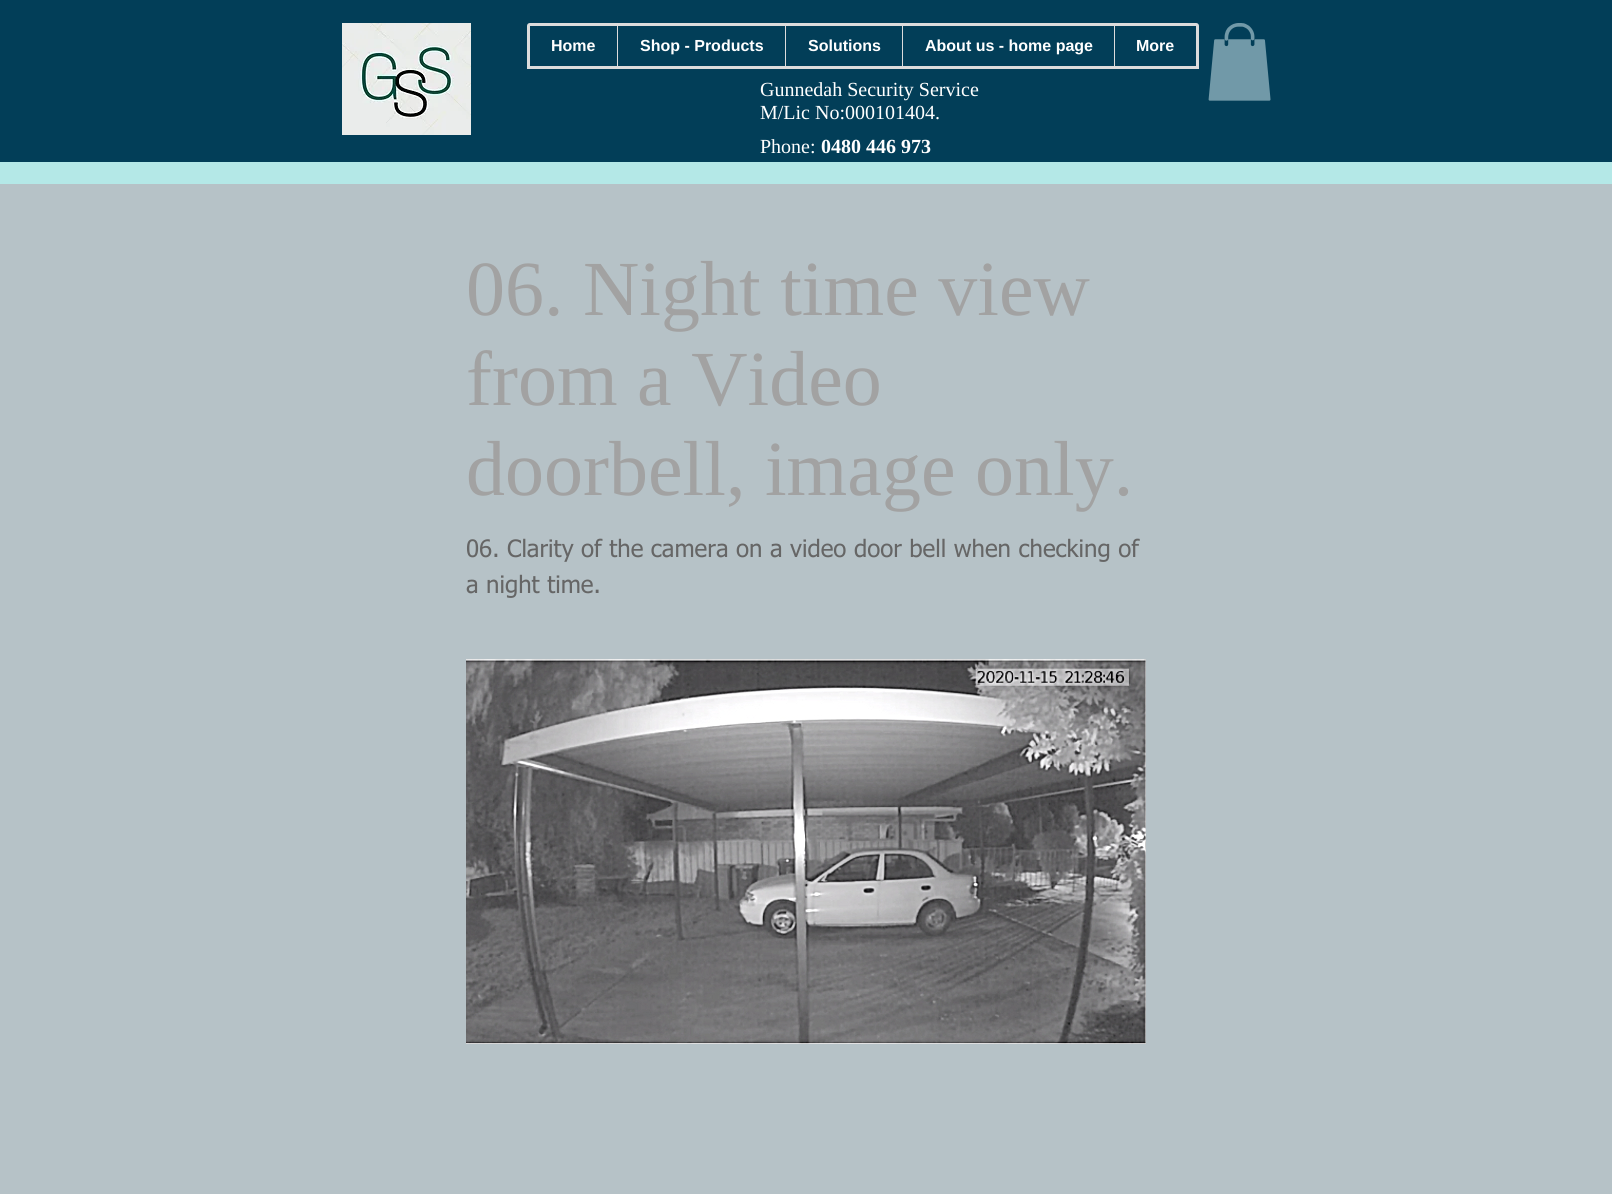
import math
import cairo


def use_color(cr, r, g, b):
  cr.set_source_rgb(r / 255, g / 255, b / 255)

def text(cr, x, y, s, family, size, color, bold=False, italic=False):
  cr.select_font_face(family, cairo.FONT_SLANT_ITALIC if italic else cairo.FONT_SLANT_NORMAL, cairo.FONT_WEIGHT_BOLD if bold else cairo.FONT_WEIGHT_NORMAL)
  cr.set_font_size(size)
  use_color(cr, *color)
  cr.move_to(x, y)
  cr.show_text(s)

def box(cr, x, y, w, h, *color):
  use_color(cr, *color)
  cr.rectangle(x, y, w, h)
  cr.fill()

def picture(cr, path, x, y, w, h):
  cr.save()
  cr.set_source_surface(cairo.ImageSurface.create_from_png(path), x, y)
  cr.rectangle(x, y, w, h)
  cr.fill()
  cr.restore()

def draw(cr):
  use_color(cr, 180, 232, 231)
  cr.paint()
  box(cr, 0, 0, 1612, 162, 2, 62, 88)
  picture(cr, "img_01.png", 342, 23, 129, 112)
  cr.new_path()
  cr.move_to(530, 24.5)
  cr.line_to(1196, 24.5)
  cr.curve_to(1197, 24.5, 1197.5, 25, 1197.5, 26)
  cr.line_to(1197.5, 67.5)
  cr.line_to(528.5, 67.5)
  cr.line_to(528.5, 26)
  cr.curve_to(528.5, 25, 529, 24.5, 530, 24.5)
  cr.close_path()
  use_color(cr, 220, 220, 220)
  cr.set_line_width(3)
  cr.stroke()
  box(cr, 617, 26, 1, 40, 220, 220, 220)
  box(cr, 785, 26, 1, 40, 220, 220, 220)
  box(cr, 902, 26, 1, 40, 220, 220, 220)
  box(cr, 1114, 26, 1, 40, 220, 220, 220)
  picture(cr, "img_02.png", 1208, 23, 63, 78)
  box(cr, 0, 184, 1612, 1010, 182, 194, 199)
  picture(cr, "img_03.png", 466, 659, 680, 385)
  text(cr, 551, 51, "Home", "Liberation Sans", 16, (255, 255, 255), bold=True)
  text(cr, 640, 51, "Shop - Products", "Liberation Sans", 16, (255, 255, 255), bold=True)
  text(cr, 808, 51, "Solutions", "Liberation Sans", 16, (255, 255, 255), bold=True)
  text(cr, 925, 51, "About us - home page", "Liberation Sans", 16, (255, 255, 255), bold=True)
  text(cr, 1136, 51, "More", "Liberation Sans", 16, (255, 255, 255), bold=True)
  text(cr, 760, 96, "Gunnedah Security Service", "Liberation Serif", 20, (255, 255, 255))
  text(cr, 760, 119, "M/Lic No:000101404.", "Liberation Serif", 20, (255, 255, 255))
  text(cr, 760, 153, "Phone:", "Liberation Serif", 20, (255, 255, 255))
  text(cr, 821, 153, "0480 446 973", "Liberation Serif", 20, (255, 255, 255), bold=True)
  text(cr, 466, 315, "06. Night time view", "Liberation Serif", 78, (162, 162, 162))
  text(cr, 466, 405, "from a Video", "Liberation Serif", 78, (162, 162, 162))
  text(cr, 466, 495, "doorbell, image only.", "Liberation Serif", 78, (162, 162, 162))
  text(cr, 466, 557, "06. Clarity of the camera on a video door bell when checking of", "tahoma", 24, (102, 102, 102))
  text(cr, 466, 593, "a night time.", "tahoma", 24, (102, 102, 102))


surface = cairo.ImageSurface(cairo.FORMAT_RGB24, 1612, 1194)
cr = cairo.Context(surface)
options = cairo.FontOptions()
options.set_hint_metrics(cairo.HINT_METRICS_OFF)
options.set_hint_style(cairo.HINT_STYLE_NONE)
cr.set_font_options(options)
cr.set_miter_limit(4)
draw(cr)
surface.write_to_png("out.png")
